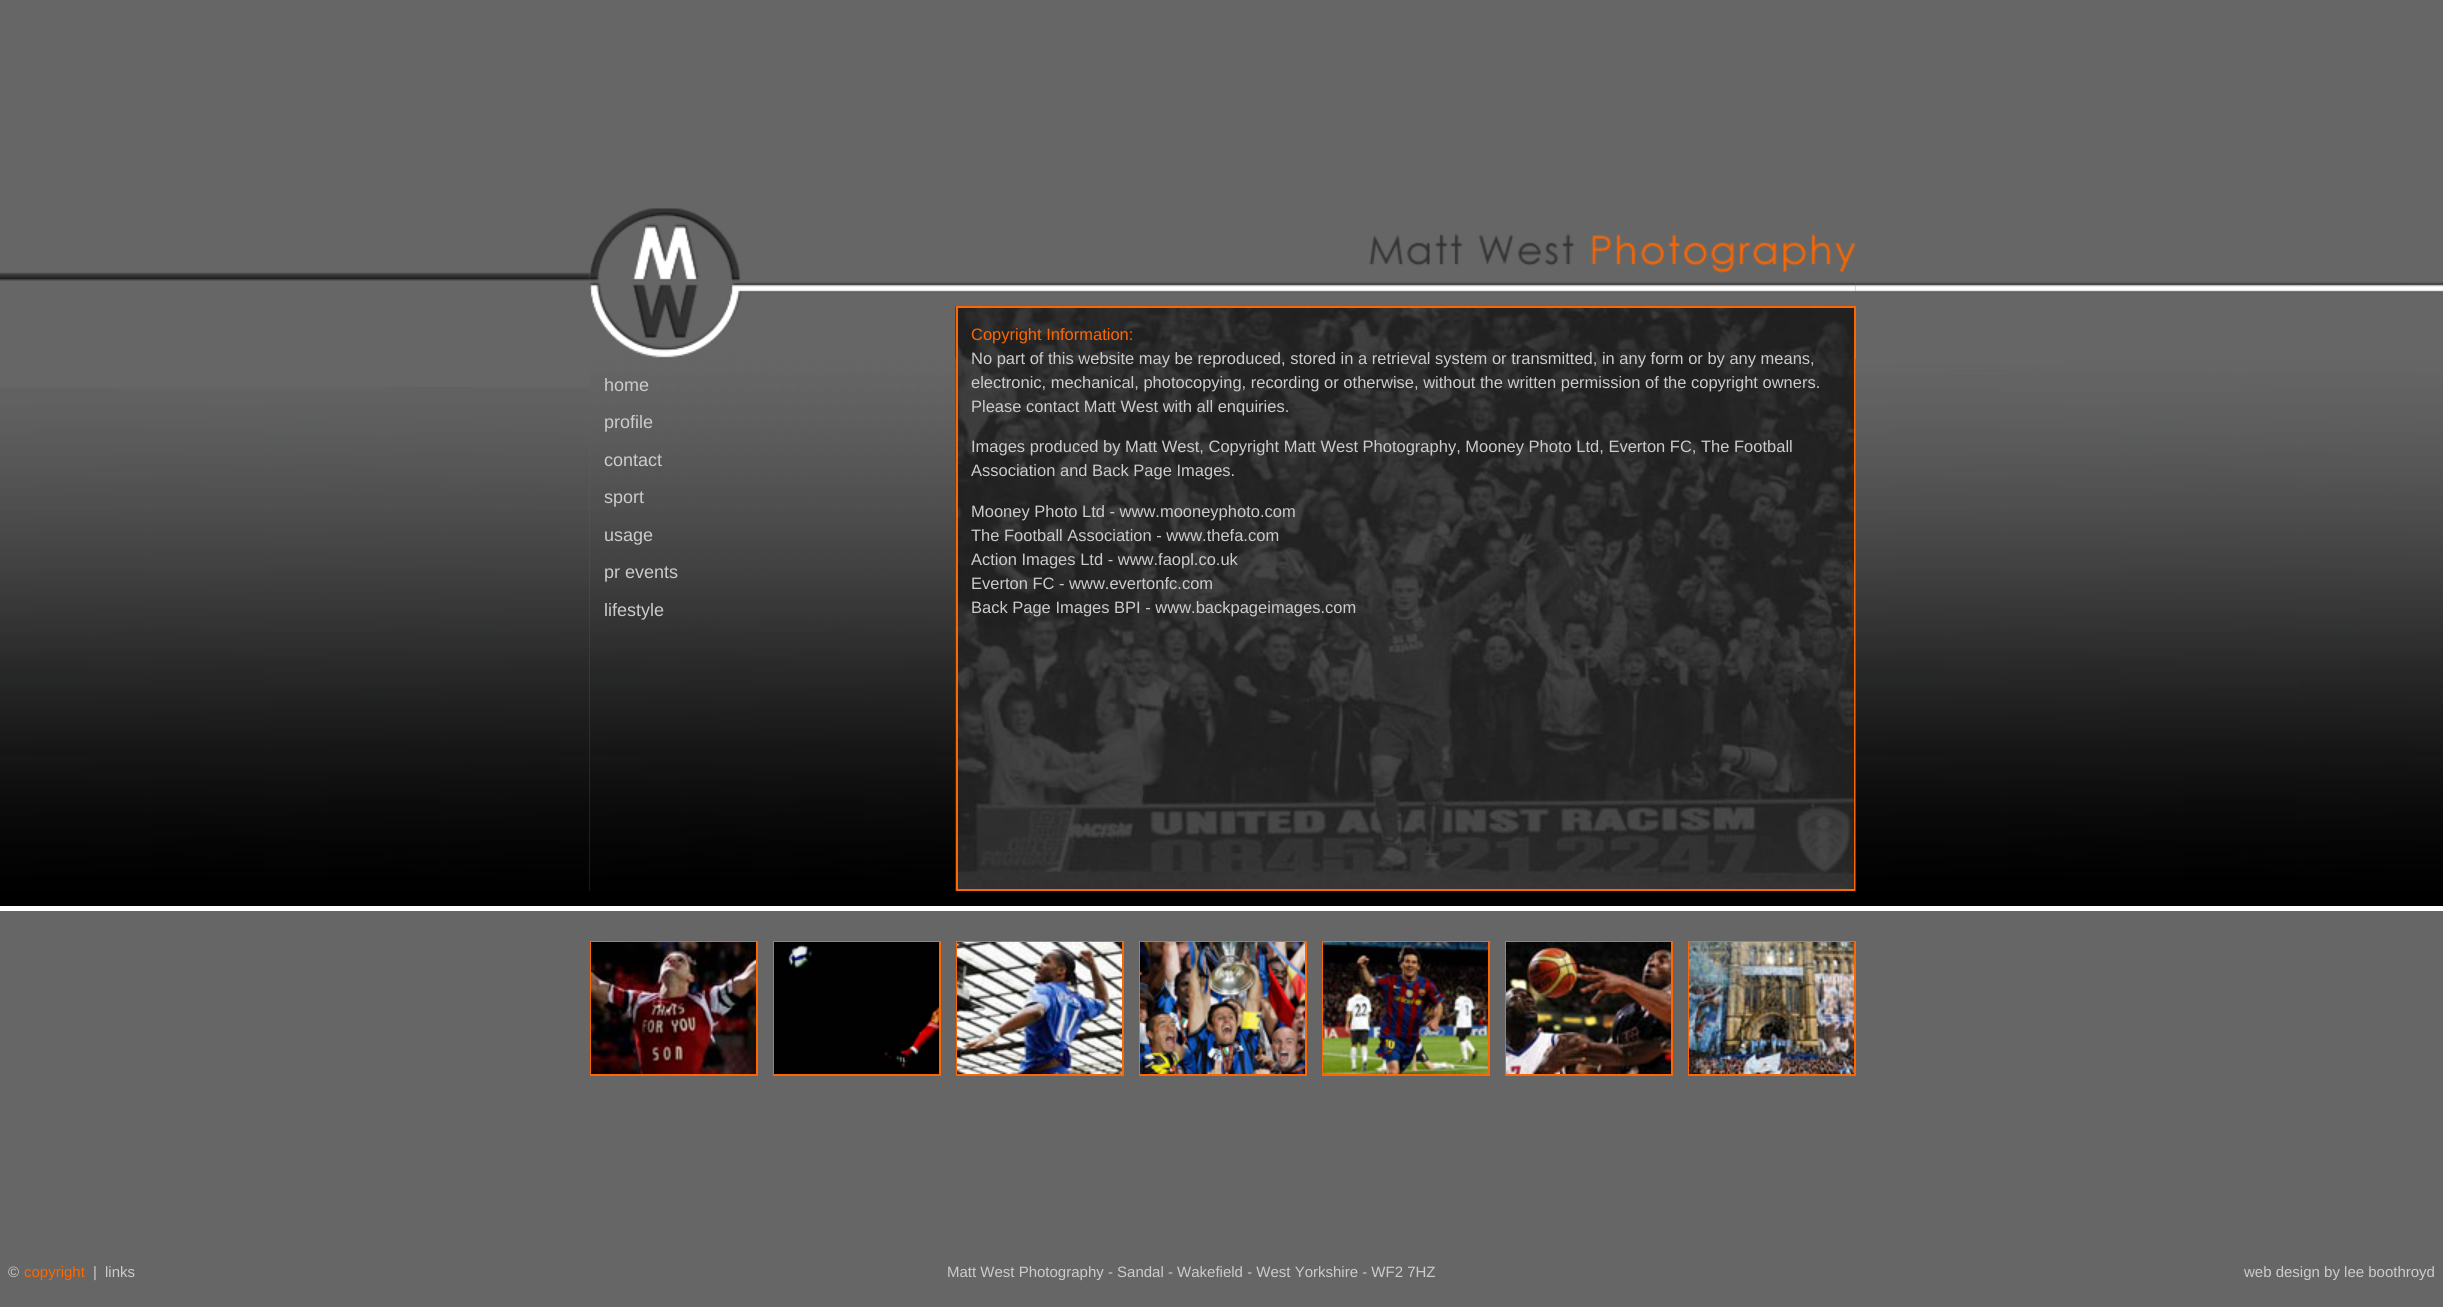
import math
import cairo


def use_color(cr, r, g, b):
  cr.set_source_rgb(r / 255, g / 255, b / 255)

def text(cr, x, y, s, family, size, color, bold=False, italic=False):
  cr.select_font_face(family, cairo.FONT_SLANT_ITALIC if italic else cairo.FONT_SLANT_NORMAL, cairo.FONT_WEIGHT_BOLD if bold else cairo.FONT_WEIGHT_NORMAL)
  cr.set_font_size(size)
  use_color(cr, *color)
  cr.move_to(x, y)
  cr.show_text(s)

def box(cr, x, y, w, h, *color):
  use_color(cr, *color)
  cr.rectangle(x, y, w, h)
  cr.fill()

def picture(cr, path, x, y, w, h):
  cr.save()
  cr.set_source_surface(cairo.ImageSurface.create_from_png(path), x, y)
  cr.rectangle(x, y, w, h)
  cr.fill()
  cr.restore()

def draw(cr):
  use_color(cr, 102, 102, 102)
  cr.paint()
  picture(cr, "img_01.png", 0, 272, 590, 9)
  picture(cr, "img_02.png", 589, 208, 1267, 98)
  picture(cr, "img_03.png", 1855, 243, 588, 50)
  picture(cr, "img_07.png", 955, 306, 899, 585)
  picture(cr, "img_04.png", 589, 358, 367, 263)
  picture(cr, "img_05.png", 0, 387, 590, 504)
  picture(cr, "img_06.png", 593, 306, 145, 53)
  cr.rectangle(957, 307, 898, 583)
  use_color(cr, 255, 102, 0)
  cr.stroke()
  picture(cr, "img_08.png", 1855, 358, 588, 533)
  picture(cr, "img_09.png", 589, 621, 367, 270)
  box(cr, 0, 891, 2443, 15, 0, 0, 0)
  box(cr, 0, 906, 2443, 5, 255, 255, 255)
  cr.rectangle(591, 942, 166, 133)
  use_color(cr, 255, 102, 0)
  cr.stroke()
  picture(cr, "img_10.png", 591, 942, 165, 132)
  cr.rectangle(774, 942, 166, 133)
  cr.stroke()
  picture(cr, "img_11.png", 774, 942, 165, 132)
  cr.rectangle(957, 942, 166, 133)
  cr.stroke()
  picture(cr, "img_12.png", 957, 942, 165, 132)
  cr.rectangle(1140, 942, 166, 133)
  cr.stroke()
  picture(cr, "img_13.png", 1140, 942, 165, 132)
  cr.rectangle(1323, 942, 166, 133)
  cr.stroke()
  picture(cr, "img_14.png", 1323, 942, 165, 132)
  cr.rectangle(1506, 942, 166, 133)
  cr.stroke()
  picture(cr, "img_15.png", 1506, 942, 165, 132)
  cr.rectangle(1689, 942, 166, 133)
  cr.stroke()
  picture(cr, "img_16.png", 1689, 942, 165, 132)
  text(cr, 604, 391, "home", "Liberation Sans", 18, (204, 204, 204))
  text(cr, 604, 428, "profile", "Liberation Sans", 18, (204, 204, 204))
  text(cr, 604, 466, "contact", "Liberation Sans", 18, (204, 204, 204))
  text(cr, 604, 503, "sport", "Liberation Sans", 18, (204, 204, 204))
  text(cr, 604, 541, "usage", "Liberation Sans", 18, (204, 204, 204))
  text(cr, 604, 578, "pr events", "Liberation Sans", 18, (204, 204, 204))
  text(cr, 604, 616, "lifestyle", "Liberation Sans", 18, (204, 204, 204))
  text(cr, 971, 340, "Copyright Information:", "Liberation Sans", 16.5, (255, 102, 0))
  text(cr, 971, 364, "No part of this website may be reproduced, stored in a retrieval system or transmitted, in any form or by any means,", "Liberation Sans", 16.5, (204, 204, 204))
  text(cr, 971, 388, "electronic, mechanical, photocopying, recording or otherwise, without the written permission of the copyright owners.", "Liberation Sans", 16.5, (204, 204, 204))
  text(cr, 971, 412, "Please contact Matt West with all enquiries.", "Liberation Sans", 16.5, (204, 204, 204))
  text(cr, 971, 452, "Images produced by Matt West, Copyright Matt West Photography, Mooney Photo Ltd, Everton FC, The Football", "Liberation Sans", 16.5, (204, 204, 204))
  text(cr, 971, 476, "Association and Back Page Images.", "Liberation Sans", 16.5, (204, 204, 204))
  text(cr, 971, 517, "Mooney Photo Ltd - www.mooneyphoto.com", "Liberation Sans", 16.5, (204, 204, 204))
  text(cr, 971, 541, "The Football Association - www.thefa.com", "Liberation Sans", 16.5, (204, 204, 204))
  text(cr, 971, 565, "Action Images Ltd - www.faopl.co.uk", "Liberation Sans", 16.5, (204, 204, 204))
  text(cr, 971, 589, "Everton FC - www.evertonfc.com", "Liberation Sans", 16.5, (204, 204, 204))
  text(cr, 971, 613, "Back Page Images BPI - www.backpageimages.com", "Liberation Sans", 16.5, (204, 204, 204))
  text(cr, 8, 1277, "©", "Liberation Sans", 15, (204, 204, 204))
  text(cr, 24, 1277, "copyright", "Liberation Sans", 15, (255, 102, 0))
  text(cr, 93, 1277, "|", "Liberation Sans", 15, (204, 204, 204))
  text(cr, 105, 1277, "links", "Liberation Sans", 15, (204, 204, 204))
  text(cr, 947, 1277, "Matt West Photography - Sandal - Wakefield - West Yorkshire - WF2 7HZ", "Liberation Sans", 15, (204, 204, 204))
  text(cr, 2244, 1277, "web design by lee boothroyd", "Liberation Sans", 15, (204, 204, 204))


surface = cairo.ImageSurface(cairo.FORMAT_RGB24, 2443, 1307)
cr = cairo.Context(surface)
options = cairo.FontOptions()
options.set_hint_metrics(cairo.HINT_METRICS_OFF)
options.set_hint_style(cairo.HINT_STYLE_NONE)
cr.set_font_options(options)
cr.set_miter_limit(4)
draw(cr)
surface.write_to_png("out.png")
